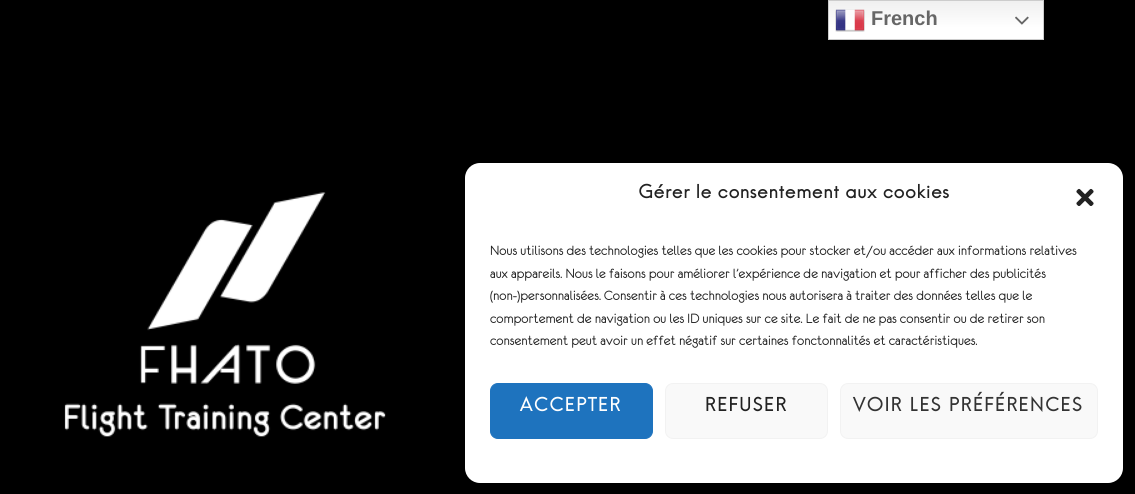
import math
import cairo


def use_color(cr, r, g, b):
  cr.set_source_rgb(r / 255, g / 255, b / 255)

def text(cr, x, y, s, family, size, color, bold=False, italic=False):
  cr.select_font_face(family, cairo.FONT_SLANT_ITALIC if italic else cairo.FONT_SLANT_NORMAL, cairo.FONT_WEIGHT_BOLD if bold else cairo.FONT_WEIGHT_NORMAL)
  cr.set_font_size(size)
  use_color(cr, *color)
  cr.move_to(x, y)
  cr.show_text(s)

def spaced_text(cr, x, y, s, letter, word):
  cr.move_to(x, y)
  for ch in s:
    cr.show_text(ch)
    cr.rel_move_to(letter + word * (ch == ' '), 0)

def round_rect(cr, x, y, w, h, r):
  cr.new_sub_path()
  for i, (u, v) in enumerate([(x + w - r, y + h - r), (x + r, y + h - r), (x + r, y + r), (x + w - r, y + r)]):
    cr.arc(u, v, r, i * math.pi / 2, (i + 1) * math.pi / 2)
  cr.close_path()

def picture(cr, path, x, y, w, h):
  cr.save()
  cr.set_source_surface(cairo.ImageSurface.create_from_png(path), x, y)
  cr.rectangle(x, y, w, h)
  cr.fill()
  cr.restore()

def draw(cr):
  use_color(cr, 0, 0, 0)
  cr.paint()
  gradient = cairo.LinearGradient(936, 0, 936, 40)
  gradient.add_color_stop_rgba(0, 0.937, 0.937, 0.937, 1)
  gradient.add_color_stop_rgba(0.7, 1, 1, 1, 1)
  cr.set_source(gradient)
  cr.rectangle(829, 1, 214, 38)
  cr.fill()
  cr.rectangle(828.5, 0.5, 215, 39)
  use_color(cr, 204, 204, 204)
  cr.set_line_width(1)
  cr.stroke()
  picture(cr, "img_01.png", 835, 9, 30, 23)
  picture(cr, "img_02.png", 1015, 16, 14, 9)
  picture(cr, "img_03.png", 64, 192, 322, 245)
  use_color(cr, 255, 255, 255)
  round_rect(cr, 465, 163, 658, 320, 15)
  cr.fill()
  picture(cr, "img_04.png", 1076, 188, 18, 18)
  use_color(cr, 30, 115, 190)
  round_rect(cr, 490.5, 383.5, 162, 55, 7.5)
  cr.fill_preserve()
  cr.stroke()
  use_color(cr, 249, 249, 249)
  round_rect(cr, 665.5, 383.5, 162, 55, 7.5)
  cr.fill_preserve()
  use_color(cr, 242, 242, 242)
  cr.stroke()
  use_color(cr, 249, 249, 249)
  round_rect(cr, 840.5, 383.5, 257, 55, 7.5)
  cr.fill_preserve()
  use_color(cr, 242, 242, 242)
  cr.stroke()
  text(cr, 871, 25, "French", "Liberation Sans", 20, (102, 102, 102), bold=True)
  text(cr, 638, 198, "Gérer le consentement aux cookies", "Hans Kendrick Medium", 18.75, (34, 34, 34))
  text(cr, 490, 255, "Nous utilisons des technologies telles que les cookies pour stocker et/ou accéder aux informations relatives", "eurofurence", 15, (34, 34, 34))
  text(cr, 490, 278, "aux appareils. Nous le faisons pour améliorer l’expérience de navigation et pour afficher des publicités", "eurofurence", 15, (34, 34, 34))
  text(cr, 490, 300, "(non-)personnalisées. Consentir à ces technologies nous autorisera à traiter des données telles que le", "eurofurence", 15, (34, 34, 34))
  text(cr, 490, 323, "comportement de navigation ou les ID uniques sur ce site. Le fait de ne pas consentir ou de retirer son", "eurofurence", 15, (34, 34, 34))
  text(cr, 490, 345, "consentement peut avoir un effet négatif sur certaines fonctonnalités et caractéristiques.", "eurofurence", 15, (34, 34, 34))
  cr.select_font_face("Hans Kendrick Medium")
  cr.set_font_size(18.75)
  use_color(cr, 255, 255, 255)
  spaced_text(cr, 520, 411, "ACCEPTER", 1.25, 0)
  use_color(cr, 34, 34, 34)
  spaced_text(cr, 705, 411, "REFUSER", 1.25, 0)
  use_color(cr, 51, 51, 51)
  spaced_text(cr, 853, 411, "VOIR LES PRÉFÉRENCES", 1.25, 0)


surface = cairo.ImageSurface(cairo.FORMAT_RGB24, 1135, 494)
cr = cairo.Context(surface)
options = cairo.FontOptions()
options.set_hint_metrics(cairo.HINT_METRICS_OFF)
options.set_hint_style(cairo.HINT_STYLE_NONE)
cr.set_font_options(options)
cr.set_miter_limit(4)
draw(cr)
surface.write_to_png("out.png")
